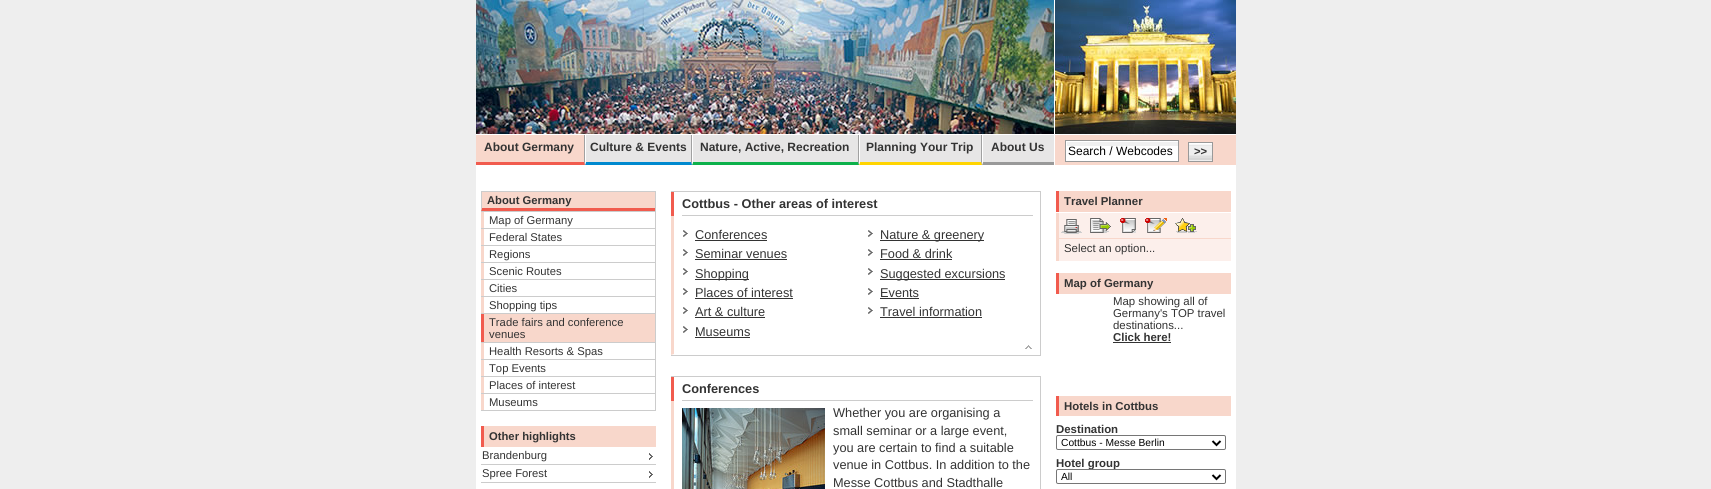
import math
import cairo


def use_color(cr, r, g, b):
  cr.set_source_rgb(r / 255, g / 255, b / 255)

def text(cr, x, y, s, family, size, color, bold=False, italic=False):
  cr.select_font_face(family, cairo.FONT_SLANT_ITALIC if italic else cairo.FONT_SLANT_NORMAL, cairo.FONT_WEIGHT_BOLD if bold else cairo.FONT_WEIGHT_NORMAL)
  cr.set_font_size(size)
  use_color(cr, *color)
  cr.move_to(x, y)
  cr.show_text(s)

def box(cr, x, y, w, h, *color):
  use_color(cr, *color)
  cr.rectangle(x, y, w, h)
  cr.fill()

def round_rect(cr, x, y, w, h, r):
  cr.new_sub_path()
  for i, (u, v) in enumerate([(x + w - r, y + h - r), (x + r, y + h - r), (x + r, y + r), (x + w - r, y + r)]):
    cr.arc(u, v, r, i * math.pi / 2, (i + 1) * math.pi / 2)
  cr.close_path()

def picture(cr, path, x, y, w, h):
  cr.save()
  cr.set_source_surface(cairo.ImageSurface.create_from_png(path), x, y)
  cr.rectangle(x, y, w, h)
  cr.fill()
  cr.restore()

def draw(cr):
  use_color(cr, 238, 238, 238)
  cr.paint()
  box(cr, 476, 0, 760, 489, 255, 255, 255)
  picture(cr, "img_01.png", 476, 0, 578, 134)
  picture(cr, "img_02.png", 1055, 0, 181, 134)
  box(cr, 584, 135, 470, 30, 231, 230, 230)
  use_color(cr, 161, 161, 161)
  cr.new_path()
  cr.move_to(585, 135)
  cr.line_to(585, 165)
  cr.line_to(584, 162)
  cr.line_to(584, 135)
  cr.close_path()
  cr.fill()
  use_color(cr, 241, 91, 78)
  cr.new_path()
  cr.move_to(585, 165)
  cr.line_to(476, 165)
  cr.line_to(476, 162)
  cr.line_to(584, 162)
  cr.close_path()
  cr.fill()
  box(cr, 476, 135, 108, 27, 248, 215, 203)
  use_color(cr, 161, 161, 161)
  cr.new_path()
  cr.move_to(692, 135)
  cr.line_to(692, 165)
  cr.line_to(691, 162)
  cr.line_to(691, 135)
  cr.close_path()
  cr.fill()
  use_color(cr, 0, 137, 207)
  cr.new_path()
  cr.move_to(692, 165)
  cr.line_to(585, 165)
  cr.line_to(586, 162)
  cr.line_to(691, 162)
  cr.close_path()
  cr.fill()
  use_color(cr, 255, 255, 255)
  cr.new_path()
  cr.move_to(585, 165)
  cr.line_to(585, 135)
  cr.line_to(586, 135)
  cr.line_to(586, 162)
  cr.close_path()
  cr.fill()
  use_color(cr, 161, 161, 161)
  cr.new_path()
  cr.move_to(859, 135)
  cr.line_to(859, 165)
  cr.line_to(858, 162)
  cr.line_to(858, 135)
  cr.close_path()
  cr.fill()
  use_color(cr, 13, 177, 75)
  cr.new_path()
  cr.move_to(859, 165)
  cr.line_to(692, 165)
  cr.line_to(693, 162)
  cr.line_to(858, 162)
  cr.close_path()
  cr.fill()
  use_color(cr, 255, 255, 255)
  cr.new_path()
  cr.move_to(692, 165)
  cr.line_to(692, 135)
  cr.line_to(693, 135)
  cr.line_to(693, 162)
  cr.close_path()
  cr.fill()
  use_color(cr, 161, 161, 161)
  cr.new_path()
  cr.move_to(982, 135)
  cr.line_to(982, 165)
  cr.line_to(981, 162)
  cr.line_to(981, 135)
  cr.close_path()
  cr.fill()
  use_color(cr, 255, 212, 0)
  cr.new_path()
  cr.move_to(982, 165)
  cr.line_to(859, 165)
  cr.line_to(860, 162)
  cr.line_to(981, 162)
  cr.close_path()
  cr.fill()
  use_color(cr, 255, 255, 255)
  cr.new_path()
  cr.move_to(859, 165)
  cr.line_to(859, 135)
  cr.line_to(860, 135)
  cr.line_to(860, 162)
  cr.close_path()
  cr.fill()
  use_color(cr, 153, 153, 153)
  cr.new_path()
  cr.move_to(1054, 165)
  cr.line_to(982, 165)
  cr.line_to(983, 162)
  cr.line_to(1054, 162)
  cr.close_path()
  cr.fill()
  use_color(cr, 255, 255, 255)
  cr.new_path()
  cr.move_to(982, 165)
  cr.line_to(982, 135)
  cr.line_to(983, 135)
  cr.line_to(983, 162)
  cr.close_path()
  cr.fill()
  box(cr, 1055, 135, 181, 30, 248, 215, 203)
  box(cr, 1066, 141, 112, 20, 255, 255, 255)
  box(cr, 1067, 142, 112, 4, 240, 240, 240)
  cr.rectangle(1065.5, 140.5, 113, 21)
  use_color(cr, 153, 153, 153)
  cr.set_line_width(1)
  cr.stroke()
  box(cr, 1189, 160, 23, 1, 239, 239, 239)
  picture(cr, "img_03.png", 1189, 143, 23, 17)
  cr.rectangle(1188.5, 142.5, 24, 19)
  use_color(cr, 153, 153, 153)
  cr.stroke()
  box(cr, 655, 191, 1, 220, 204, 204, 204)
  box(cr, 481, 410, 175, 1, 204, 204, 204)
  box(cr, 481, 191, 174, 1, 204, 204, 204)
  box(cr, 481, 192, 174, 19, 248, 215, 203)
  use_color(cr, 241, 91, 78)
  cr.new_path()
  cr.move_to(655, 211)
  cr.line_to(481, 211)
  cr.line_to(482, 208)
  cr.line_to(655, 208)
  cr.close_path()
  cr.fill()
  use_color(cr, 204, 204, 204)
  cr.new_path()
  cr.move_to(481, 211)
  cr.line_to(481, 192)
  cr.line_to(482, 192)
  cr.line_to(482, 208)
  cr.close_path()
  cr.fill()
  box(cr, 481, 211, 174, 1, 204, 204, 204)
  box(cr, 481, 212, 3, 16, 248, 215, 203)
  box(cr, 481, 228, 174, 1, 204, 204, 204)
  box(cr, 481, 229, 3, 16, 248, 215, 203)
  box(cr, 481, 245, 174, 1, 204, 204, 204)
  box(cr, 481, 246, 3, 16, 248, 215, 203)
  box(cr, 481, 262, 174, 1, 204, 204, 204)
  box(cr, 481, 263, 3, 16, 248, 215, 203)
  box(cr, 481, 279, 174, 1, 204, 204, 204)
  box(cr, 481, 280, 3, 16, 248, 215, 203)
  box(cr, 481, 296, 174, 1, 204, 204, 204)
  box(cr, 481, 297, 3, 16, 248, 215, 203)
  box(cr, 481, 313, 174, 1, 204, 204, 204)
  box(cr, 484, 314, 171, 28, 248, 215, 203)
  box(cr, 481, 314, 3, 28, 241, 91, 78)
  box(cr, 481, 342, 174, 1, 204, 204, 204)
  box(cr, 481, 343, 3, 16, 248, 215, 203)
  box(cr, 481, 359, 174, 1, 204, 204, 204)
  box(cr, 481, 360, 3, 16, 248, 215, 203)
  box(cr, 481, 376, 174, 1, 204, 204, 204)
  box(cr, 481, 377, 3, 16, 248, 215, 203)
  box(cr, 481, 393, 174, 1, 204, 204, 204)
  box(cr, 481, 394, 3, 16, 248, 215, 203)
  box(cr, 484, 426, 172, 21, 248, 215, 203)
  box(cr, 481, 426, 3, 21, 241, 91, 78)
  box(cr, 481, 464, 175, 1, 204, 204, 204)
  picture(cr, "img_04.png", 649, 453, 4, 7)
  box(cr, 481, 482, 175, 1, 204, 204, 204)
  picture(cr, "img_05.png", 649, 471, 4, 7)
  box(cr, 671, 191, 370, 1, 204, 204, 204)
  box(cr, 1040, 191, 1, 165, 204, 204, 204)
  box(cr, 671, 355, 370, 1, 204, 204, 204)
  box(cr, 682, 215, 351, 1, 204, 204, 204)
  box(cr, 671, 192, 3, 24, 241, 91, 78)
  use_color(cr, 248, 215, 203)
  cr.new_path()
  cr.move_to(671, 355)
  cr.line_to(671, 216)
  cr.line_to(674, 216)
  cr.line_to(674, 354)
  cr.close_path()
  cr.fill()
  picture(cr, "img_06.png", 683, 230, 5, 7)
  box(cr, 695, 240, 72, 1, 51, 51, 51)
  picture(cr, "img_06.png", 683, 249, 5, 7)
  box(cr, 695, 259, 92, 1, 51, 51, 51)
  picture(cr, "img_06.png", 683, 268, 5, 7)
  box(cr, 695, 279, 54, 1, 51, 51, 51)
  picture(cr, "img_06.png", 683, 288, 5, 7)
  box(cr, 695, 298, 98, 1, 51, 51, 51)
  picture(cr, "img_06.png", 683, 307, 5, 7)
  box(cr, 695, 317, 70, 1, 51, 51, 51)
  picture(cr, "img_06.png", 683, 326, 5, 7)
  box(cr, 695, 337, 55, 1, 51, 51, 51)
  picture(cr, "img_06.png", 868, 230, 5, 7)
  box(cr, 880, 240, 104, 1, 51, 51, 51)
  picture(cr, "img_06.png", 868, 249, 5, 7)
  box(cr, 880, 259, 72, 1, 51, 51, 51)
  picture(cr, "img_06.png", 868, 268, 5, 7)
  box(cr, 880, 279, 125, 1, 51, 51, 51)
  picture(cr, "img_06.png", 868, 288, 5, 7)
  box(cr, 880, 298, 39, 1, 51, 51, 51)
  picture(cr, "img_06.png", 868, 307, 5, 7)
  box(cr, 880, 317, 102, 1, 51, 51, 51)
  picture(cr, "img_07.png", 1025, 345, 7, 4)
  box(cr, 671, 376, 370, 1, 204, 204, 204)
  box(cr, 1040, 376, 1, 113, 204, 204, 204)
  box(cr, 682, 400, 351, 1, 204, 204, 204)
  box(cr, 671, 377, 3, 24, 241, 91, 78)
  use_color(cr, 248, 215, 203)
  cr.new_path()
  cr.move_to(671, 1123)
  cr.line_to(671, 401)
  cr.line_to(674, 401)
  cr.line_to(674, 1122)
  cr.close_path()
  cr.fill()
  picture(cr, "img_08.png", 682, 408, 143, 81)
  box(cr, 1059, 191, 172, 21, 248, 215, 203)
  box(cr, 1056, 191, 3, 21, 241, 91, 78)
  box(cr, 1059, 213, 172, 25, 252, 239, 235)
  box(cr, 1056, 213, 3, 25, 248, 215, 203)
  picture(cr, "img_09.png", 1061, 219, 21, 15)
  picture(cr, "img_10.png", 1090, 218, 21, 15)
  picture(cr, "img_11.png", 1120, 218, 16, 15)
  picture(cr, "img_12.png", 1145, 218, 22, 15)
  picture(cr, "img_13.png", 1175, 218, 22, 15)
  box(cr, 1059, 239, 172, 22, 252, 239, 235)
  box(cr, 1056, 238, 175, 1, 248, 215, 203)
  box(cr, 1056, 238, 3, 23, 248, 215, 203)
  box(cr, 1059, 273, 172, 21, 248, 215, 203)
  box(cr, 1056, 273, 3, 21, 241, 91, 78)
  box(cr, 1113, 342, 58, 1, 51, 51, 51)
  box(cr, 1059, 396, 172, 20, 248, 215, 203)
  box(cr, 1056, 396, 3, 20, 241, 91, 78)
  round_rect(cr, 1056.5, 435.5, 169, 14, 1.5)
  use_color(cr, 118, 118, 118)
  cr.stroke()
  cr.new_path()
  cr.move_to(1212.5, 441)
  cr.line_to(1216.5, 445)
  cr.line_to(1220.5, 441)
  use_color(cr, 0, 0, 0)
  cr.set_line_width(2)
  cr.stroke()
  text(cr, 484, 151, "About Germany", "Liberation Sans", 12, (51, 51, 51), bold=True)
  text(cr, 590, 151, "Culture & Events", "Liberation Sans", 12, (51, 51, 51), bold=True)
  text(cr, 700, 151, "Nature, Active, Recreation", "Liberation Sans", 12, (51, 51, 51), bold=True)
  text(cr, 866, 151, "Planning Your Trip", "Liberation Sans", 12, (51, 51, 51), bold=True)
  text(cr, 991, 151, "About Us", "Liberation Sans", 12, (51, 51, 51), bold=True)
  text(cr, 1068, 155, "Search / Webcodes", "Liberation Sans", 12, (0, 0, 0))
  text(cr, 1194, 155, ">>", "Liberation Sans", 11.25, (51, 51, 51), bold=True)
  text(cr, 487, 204, "About Germany", "Liberation Sans", 11.25, (51, 51, 51), bold=True)
  text(cr, 489, 224, "Map of Germany", "Liberation Sans", 11.25, (51, 51, 51))
  text(cr, 489, 241, "Federal States", "Liberation Sans", 11.25, (51, 51, 51))
  text(cr, 489, 258, "Regions", "Liberation Sans", 11.25, (51, 51, 51))
  text(cr, 489, 275, "Scenic Routes", "Liberation Sans", 11.25, (51, 51, 51))
  text(cr, 489, 292, "Cities", "Liberation Sans", 11.25, (51, 51, 51))
  text(cr, 489, 309, "Shopping tips", "Liberation Sans", 11.25, (51, 51, 51))
  text(cr, 489, 326, "Trade fairs and conference", "Liberation Sans", 11.25, (51, 51, 51))
  text(cr, 489, 338, "venues", "Liberation Sans", 11.25, (51, 51, 51))
  text(cr, 489, 355, "Health Resorts & Spas", "Liberation Sans", 11.25, (51, 51, 51))
  text(cr, 489, 372, "Top Events", "Liberation Sans", 11.25, (51, 51, 51))
  text(cr, 489, 389, "Places of interest", "Liberation Sans", 11.25, (51, 51, 51))
  text(cr, 489, 406, "Museums", "Liberation Sans", 11.25, (51, 51, 51))
  text(cr, 489, 440, "Other highlights", "Liberation Sans", 11.25, (51, 51, 51), bold=True)
  text(cr, 482, 459, "Brandenburg", "Liberation Sans", 11.25, (51, 51, 51))
  text(cr, 482, 477, "Spree Forest", "Liberation Sans", 11.25, (51, 51, 51))
  text(cr, 682, 208, "Cottbus - Other areas of interest", "Liberation Sans", 12.75, (51, 51, 51), bold=True)
  text(cr, 695, 239, "Conferences", "Liberation Sans", 12.75, (51, 51, 51))
  text(cr, 695, 258, "Seminar venues", "Liberation Sans", 12.75, (51, 51, 51))
  text(cr, 695, 278, "Shopping", "Liberation Sans", 12.75, (51, 51, 51))
  text(cr, 695, 297, "Places of interest", "Liberation Sans", 12.75, (51, 51, 51))
  text(cr, 695, 316, "Art & culture", "Liberation Sans", 12.75, (51, 51, 51))
  text(cr, 695, 336, "Museums", "Liberation Sans", 12.75, (51, 51, 51))
  text(cr, 880, 239, "Nature & greenery", "Liberation Sans", 12.75, (51, 51, 51))
  text(cr, 880, 258, "Food & drink", "Liberation Sans", 12.75, (51, 51, 51))
  text(cr, 880, 278, "Suggested excursions", "Liberation Sans", 12.75, (51, 51, 51))
  text(cr, 880, 297, "Events", "Liberation Sans", 12.75, (51, 51, 51))
  text(cr, 880, 316, "Travel information", "Liberation Sans", 12.75, (51, 51, 51))
  text(cr, 682, 393, "Conferences", "Liberation Sans", 12.75, (51, 51, 51), bold=True)
  text(cr, 833, 417, "Whether you are organising a", "Liberation Sans", 12.75, (51, 51, 51))
  text(cr, 833, 435, "small seminar or a large event,", "Liberation Sans", 12.75, (51, 51, 51))
  text(cr, 833, 452, "you are certain to find a suitable", "Liberation Sans", 12.75, (51, 51, 51))
  text(cr, 833, 469, "venue in Cottbus. In addition to the", "Liberation Sans", 12.75, (51, 51, 51))
  text(cr, 833, 487, "Messe Cottbus and Stadthalle", "Liberation Sans", 12.75, (51, 51, 51))
  text(cr, 1064, 205, "Travel Planner", "Liberation Sans", 11.4, (51, 51, 51), bold=True)
  text(cr, 1064, 252, "Select an option...", "Liberation Sans", 11.4, (51, 51, 51))
  text(cr, 1064, 287, "Map of Germany", "Liberation Sans", 11.4, (51, 51, 51), bold=True)
  text(cr, 1113, 305, "Map showing all of", "Liberation Sans", 11.4, (51, 51, 51))
  text(cr, 1113, 317, "Germany's TOP travel", "Liberation Sans", 11.4, (51, 51, 51))
  text(cr, 1113, 329, "destinations...", "Liberation Sans", 11.4, (51, 51, 51))
  text(cr, 1113, 341, "Click here!", "Liberation Sans", 11.4, (51, 51, 51), bold=True)
  text(cr, 1064, 410, "Hotels in Cottbus", "Liberation Sans", 11.4, (51, 51, 51), bold=True)
  text(cr, 1056, 433, "Destination", "Liberation Sans", 11.4, (51, 51, 51), bold=True)
  text(cr, 1061, 446, "Cottbus - Messe Berlin", "Liberation Sans", 10.25, (0, 0, 0))
  text(cr, 1056, 467, "Hotel group", "Liberation Sans", 11.4, (51, 51, 51), bold=True)
  use_color(cr, 255, 255, 255)
  round_rect(cr, 1056.5, 469.5, 169, 14, 1.5)
  cr.fill_preserve()
  use_color(cr, 118, 118, 118)
  cr.set_line_width(1)
  cr.stroke()
  cr.new_path()
  cr.move_to(1212.5, 475)
  cr.line_to(1216.5, 479)
  cr.line_to(1220.5, 475)
  use_color(cr, 0, 0, 0)
  cr.set_line_width(2)
  cr.stroke()
  text(cr, 1061, 480, "All", "Liberation Sans", 10.25, (0, 0, 0))


surface = cairo.ImageSurface(cairo.FORMAT_RGB24, 1711, 489)
cr = cairo.Context(surface)
options = cairo.FontOptions()
options.set_hint_metrics(cairo.HINT_METRICS_OFF)
options.set_hint_style(cairo.HINT_STYLE_NONE)
cr.set_font_options(options)
cr.set_miter_limit(4)
draw(cr)
surface.write_to_png("out.png")
